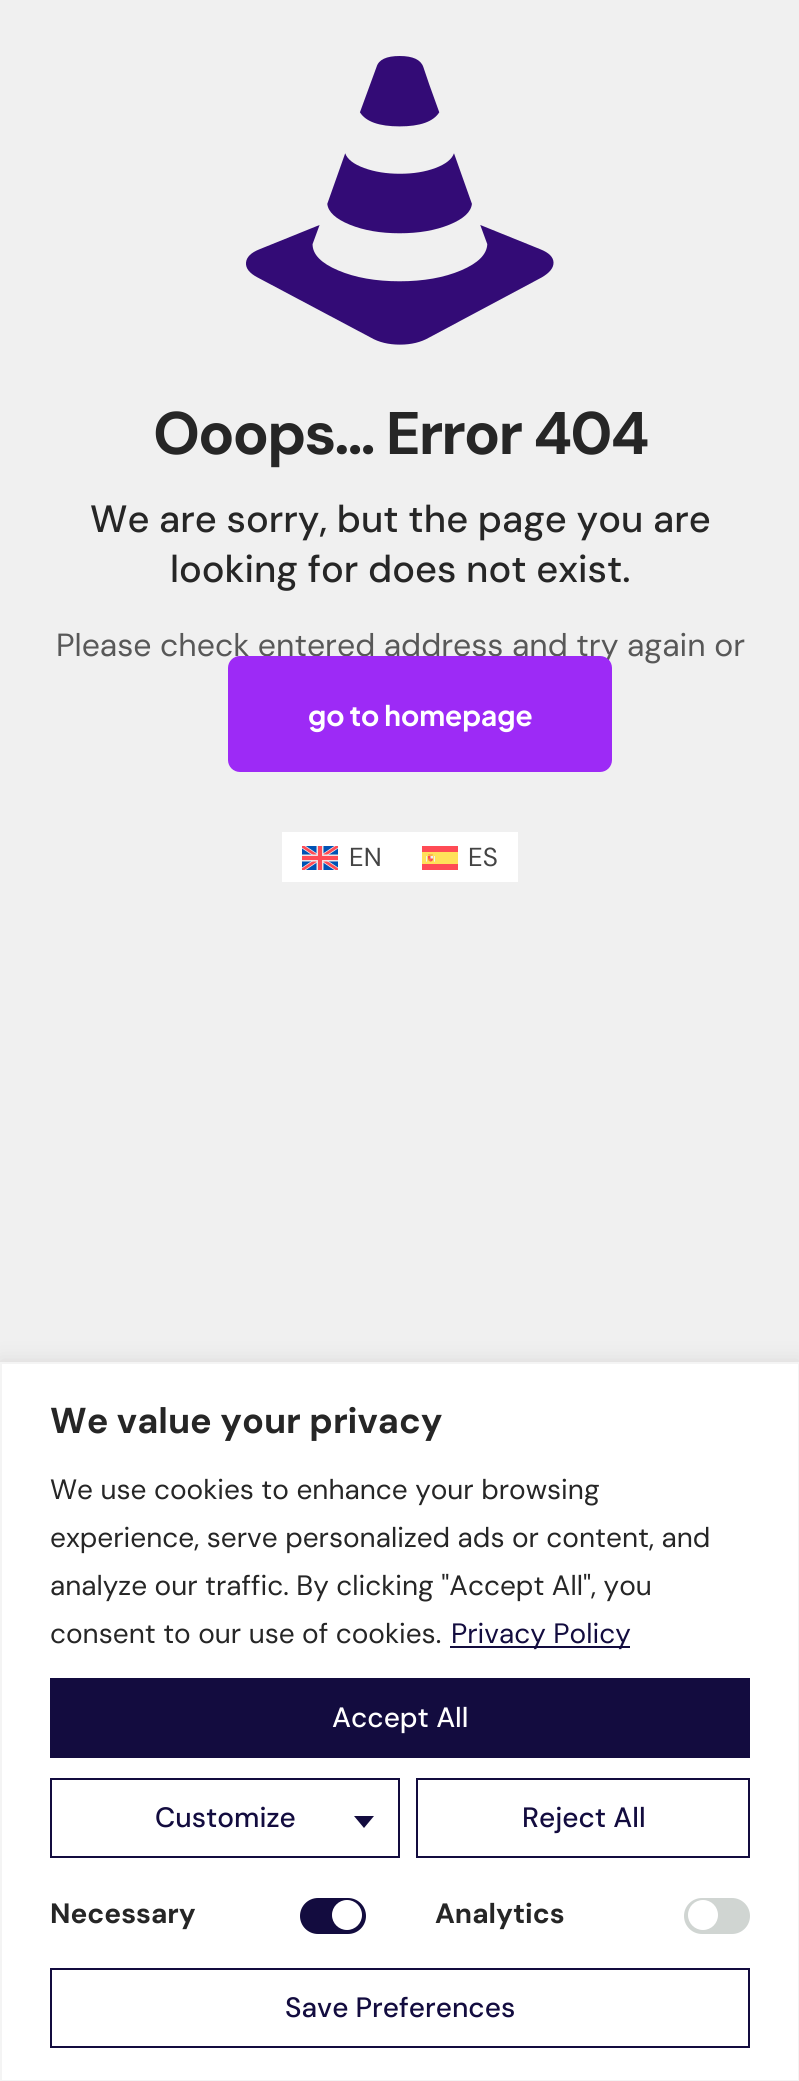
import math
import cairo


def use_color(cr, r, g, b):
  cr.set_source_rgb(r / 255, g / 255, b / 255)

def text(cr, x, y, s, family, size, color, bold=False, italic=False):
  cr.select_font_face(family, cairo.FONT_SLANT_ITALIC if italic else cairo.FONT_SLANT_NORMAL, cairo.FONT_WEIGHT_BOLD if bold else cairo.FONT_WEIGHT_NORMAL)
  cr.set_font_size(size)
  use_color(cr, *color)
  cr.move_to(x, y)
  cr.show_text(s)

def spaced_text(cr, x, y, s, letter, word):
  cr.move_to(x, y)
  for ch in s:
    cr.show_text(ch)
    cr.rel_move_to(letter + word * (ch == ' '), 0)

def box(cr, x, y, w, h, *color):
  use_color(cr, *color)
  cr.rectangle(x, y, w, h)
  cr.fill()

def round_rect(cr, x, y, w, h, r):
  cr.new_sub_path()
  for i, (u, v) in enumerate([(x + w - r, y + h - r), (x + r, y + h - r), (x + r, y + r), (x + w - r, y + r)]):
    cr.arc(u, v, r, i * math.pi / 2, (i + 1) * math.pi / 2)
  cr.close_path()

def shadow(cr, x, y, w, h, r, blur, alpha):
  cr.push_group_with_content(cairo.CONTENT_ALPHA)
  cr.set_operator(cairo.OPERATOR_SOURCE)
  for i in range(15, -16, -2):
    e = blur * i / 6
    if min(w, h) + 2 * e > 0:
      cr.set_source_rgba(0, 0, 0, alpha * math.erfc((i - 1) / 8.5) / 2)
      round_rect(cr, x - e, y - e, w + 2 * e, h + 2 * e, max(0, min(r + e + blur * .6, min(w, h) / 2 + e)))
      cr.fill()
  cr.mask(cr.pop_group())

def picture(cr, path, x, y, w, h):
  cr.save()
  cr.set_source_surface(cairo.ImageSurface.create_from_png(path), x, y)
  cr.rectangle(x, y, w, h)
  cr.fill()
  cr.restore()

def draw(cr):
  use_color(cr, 240, 240, 240)
  cr.paint()
  picture(cr, "img_01.png", 246, 56, 308, 289)
  box(cr, 282, 832, 236, 50, 255, 255, 255)
  picture(cr, "img_02.png", 302, 846, 36, 24)
  picture(cr, "img_03.png", 422, 846, 36, 24)
  use_color(cr, 172, 171, 171)
  shadow(cr, 0, 1360, 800, 720, 0, 10, 0.3)
  use_color(cr, 255, 255, 255)
  cr.rectangle(1, 1363, 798, 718)
  cr.fill_preserve()
  use_color(cr, 244, 244, 244)
  cr.stroke()
  box(cr, 450, 1646, 180, 2, 19, 12, 63)
  box(cr, 50, 1678, 700, 80, 19, 12, 63)
  cr.rectangle(51, 1779, 348, 78)
  cr.stroke()
  cr.new_path()
  cr.move_to(354, 1816)
  cr.line_to(374, 1816)
  cr.line_to(364, 1828)
  cr.close_path()
  cr.fill()
  cr.rectangle(417, 1779, 332, 78)
  cr.stroke()
  round_rect(cr, 300, 1898, 66, 36, 18)
  cr.fill()
  use_color(cr, 255, 255, 255)
  cr.arc(347, 1915, 15, 0, 2 * math.pi)
  cr.fill()
  use_color(cr, 208, 213, 210)
  round_rect(cr, 684, 1898, 66, 36, 18)
  cr.fill()
  use_color(cr, 255, 255, 255)
  cr.arc(703, 1915, 15, 0, 2 * math.pi)
  cr.fill()
  cr.rectangle(51, 1969, 698, 78)
  use_color(cr, 19, 12, 63)
  cr.stroke()
  cr.select_font_face("DM Sans", cairo.FONT_SLANT_NORMAL, cairo.FONT_WEIGHT_BOLD)
  cr.set_font_size(60)
  use_color(cr, 38, 38, 38)
  spaced_text(cr, 153, 454, "Ooops... Error 404", -2, 0)
  text(cr, 90, 532, "We are sorry, but the page you are", "DM Sans Medium", 38, (38, 38, 38))
  text(cr, 170, 582, "looking for does not exist.", "DM Sans Medium", 38, (38, 38, 38))
  text(cr, 56, 656, "Please check entered address and try again or", "DM Sans", 32, (88, 88, 88))
  use_color(cr, 157, 42, 246)
  round_rect(cr, 228, 656, 384, 116, 12)
  cr.fill()
  text(cr, 308, 726, "go to homepage", "Plus Jakarta Sans", 28, (255, 255, 255), bold=True)
  text(cr, 349, 866, "EN", "DM Sans", 26, (68, 68, 68))
  text(cr, 468, 866, "ES", "DM Sans", 26, (68, 68, 68))
  text(cr, 50, 1433, "We value your privacy", "DM Sans", 36, (38, 38, 38), bold=True)
  text(cr, 50, 1499, "We use cookies to enhance your browsing", "DM Sans", 28, (38, 38, 38))
  text(cr, 50, 1547, "experience, serve personalized ads or content, and", "DM Sans", 28, (38, 38, 38))
  text(cr, 50, 1595, "analyze our traffic. By clicking \"Accept All\", you", "DM Sans", 28, (38, 38, 38))
  text(cr, 50, 1643, "consent to our use of cookies.", "DM Sans", 28, (38, 38, 38))
  text(cr, 451, 1643, "Privacy Policy", "DM Sans", 28, (19, 12, 63))
  text(cr, 332, 1727, "Accept All", "DM Sans Medium", 28, (255, 255, 255))
  text(cr, 155, 1827, "Customize", "DM Sans Medium", 28, (19, 12, 63))
  text(cr, 522, 1827, "Reject All", "DM Sans Medium", 28, (19, 12, 63))
  text(cr, 50, 1923, "Necessary", "DM Sans", 28, (38, 38, 38), bold=True)
  text(cr, 435, 1923, "Analytics", "DM Sans", 28, (38, 38, 38), bold=True)
  text(cr, 285, 2017, "Save Preferences", "DM Sans Medium", 28, (19, 12, 63))


surface = cairo.ImageSurface(cairo.FORMAT_RGB24, 799, 2081)
cr = cairo.Context(surface)
options = cairo.FontOptions()
options.set_hint_metrics(cairo.HINT_METRICS_OFF)
options.set_hint_style(cairo.HINT_STYLE_NONE)
cr.set_font_options(options)
cr.set_miter_limit(4)
draw(cr)
surface.write_to_png("out.png")
